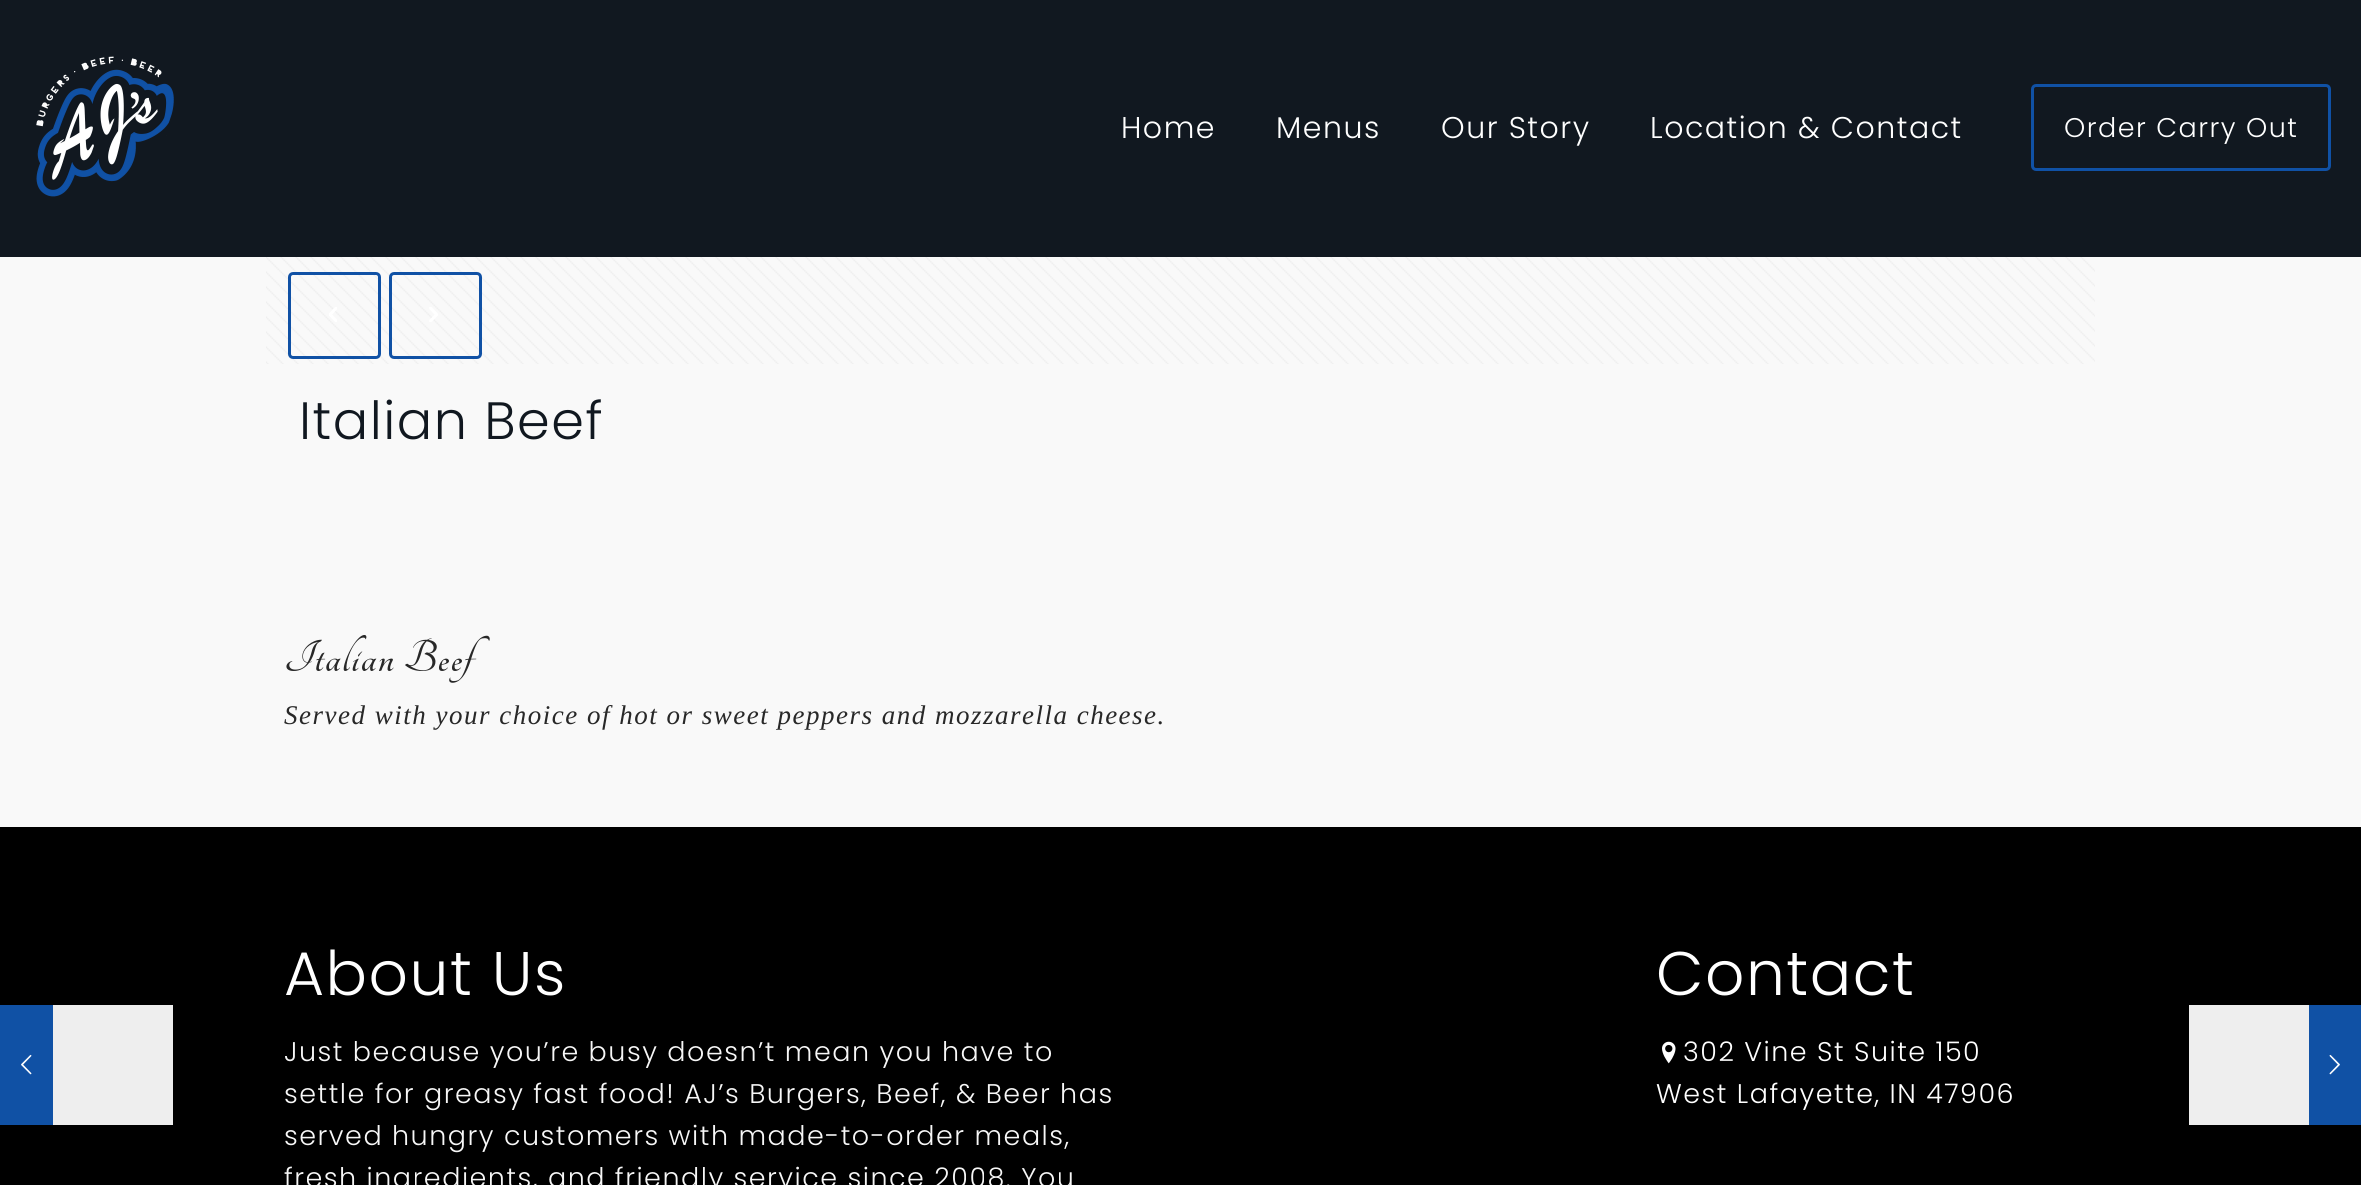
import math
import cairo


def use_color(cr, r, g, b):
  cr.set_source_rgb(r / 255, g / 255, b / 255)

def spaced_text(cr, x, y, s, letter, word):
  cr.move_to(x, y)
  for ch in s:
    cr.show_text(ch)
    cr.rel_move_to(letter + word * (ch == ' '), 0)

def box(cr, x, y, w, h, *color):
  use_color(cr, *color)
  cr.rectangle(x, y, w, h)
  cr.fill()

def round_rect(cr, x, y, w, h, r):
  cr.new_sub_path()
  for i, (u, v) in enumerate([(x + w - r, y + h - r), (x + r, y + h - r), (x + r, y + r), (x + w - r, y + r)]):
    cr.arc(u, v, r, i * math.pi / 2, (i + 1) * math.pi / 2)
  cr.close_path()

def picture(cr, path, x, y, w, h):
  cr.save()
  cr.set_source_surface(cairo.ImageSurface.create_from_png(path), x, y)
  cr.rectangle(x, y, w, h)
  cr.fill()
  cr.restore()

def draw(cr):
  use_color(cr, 249, 249, 249)
  cr.paint()
  box(cr, 0, 827, 2361, 358, 0, 0, 0)
  box(cr, 0, 1005, 53, 120, 16, 81, 165)
  picture(cr, "img_01.png", 21, 1054, 11, 21)
  box(cr, 53, 1005, 120, 120, 238, 238, 238)
  box(cr, 0, 0, 2361, 257, 17, 24, 32)
  picture(cr, "img_02.png", 36, 56, 138, 141)
  round_rect(cr, 2032.5, 85.5, 297, 84, 3.5)
  use_color(cr, 16, 81, 165)
  cr.set_line_width(3)
  cr.stroke()
  picture(cr, "img_03.png", 266, 257, 1829, 107)
  round_rect(cr, 289.5, 273.5, 90, 84, 3.5)
  cr.stroke()
  picture(cr, "img_04.png", 329, 307, 8, 15)
  round_rect(cr, 390.5, 273.5, 90, 84, 3.5)
  cr.stroke()
  picture(cr, "img_05.png", 429, 307, 9, 15)
  picture(cr, "img_06.png", 1662, 1041, 14, 23)
  box(cr, 2189, 1005, 120, 120, 238, 238, 238)
  box(cr, 2309, 1005, 52, 120, 16, 81, 165)
  picture(cr, "img_07.png", 2329, 1054, 11, 21)
  cr.select_font_face("Poppins Light")
  cr.set_font_size(30)
  use_color(cr, 255, 255, 255)
  spaced_text(cr, 1121, 138, "Home", 1.5, 0)
  spaced_text(cr, 1276, 138, "Menus", 1.5, 0)
  spaced_text(cr, 1441, 138, "Our Story", 1.5, 0)
  spaced_text(cr, 1650, 138, "Location & Contact", 1.5, 0)
  cr.set_font_size(27)
  spaced_text(cr, 2064, 137, "Order Carry Out", 1.5, 0)
  cr.set_font_size(52.5)
  use_color(cr, 17, 24, 32)
  spaced_text(cr, 299, 439, "Italian Beef", 1.5, 0)
  cr.select_font_face("Tangerine", cairo.FONT_SLANT_NORMAL, cairo.FONT_WEIGHT_BOLD)
  cr.set_font_size(48.5)
  use_color(cr, 40, 40, 40)
  spaced_text(cr, 284, 671, "Italian Beef", 1.5, 0)
  cr.select_font_face("Liberation Serif", cairo.FONT_SLANT_ITALIC)
  cr.set_font_size(27)
  spaced_text(cr, 284, 724, "Served with your choice of hot or sweet peppers and mozzarella cheese.", 1.5, 0)
  cr.select_font_face("Poppins Light")
  cr.set_font_size(61.5)
  use_color(cr, 255, 255, 255)
  spaced_text(cr, 284, 995, "About Us", 1.5, 0)
  cr.set_font_size(27)
  use_color(cr, 247, 247, 247)
  spaced_text(cr, 284, 1061, "Just because you’re busy doesn’t mean you have to", 1.5, 0)
  spaced_text(cr, 284, 1103, "settle for greasy fast food! AJ’s Burgers, Beef, & Beer has", 1.5, 0)
  spaced_text(cr, 284, 1145, "served hungry customers with made-to-order meals,", 1.5, 0)
  spaced_text(cr, 284, 1187, "fresh ingredients, and friendly service since 2008. You", 1.5, 0)
  cr.set_font_size(61.5)
  use_color(cr, 255, 255, 255)
  spaced_text(cr, 1656, 995, "Contact", 1.5, 0)
  cr.set_font_size(27)
  spaced_text(cr, 1683, 1061, "302 Vine St Suite 150", 1.5, 0)
  spaced_text(cr, 1656, 1103, "West Lafayette, IN 47906", 1.5, 0)


surface = cairo.ImageSurface(cairo.FORMAT_RGB24, 2361, 1185)
cr = cairo.Context(surface)
options = cairo.FontOptions()
options.set_hint_metrics(cairo.HINT_METRICS_OFF)
options.set_hint_style(cairo.HINT_STYLE_NONE)
cr.set_font_options(options)
cr.set_miter_limit(4)
draw(cr)
surface.write_to_png("out.png")
